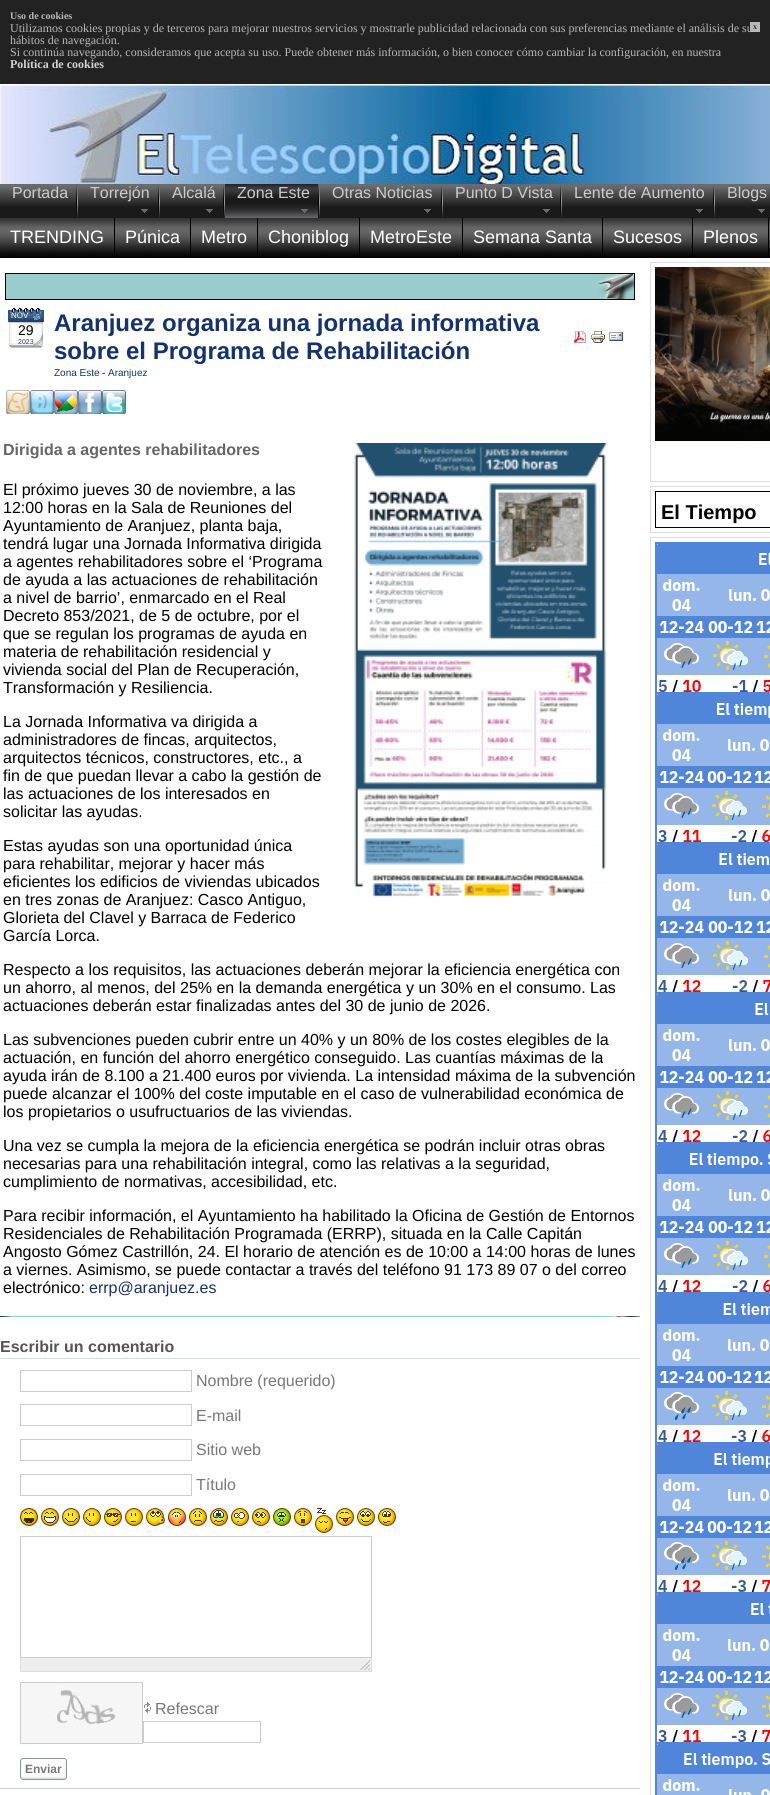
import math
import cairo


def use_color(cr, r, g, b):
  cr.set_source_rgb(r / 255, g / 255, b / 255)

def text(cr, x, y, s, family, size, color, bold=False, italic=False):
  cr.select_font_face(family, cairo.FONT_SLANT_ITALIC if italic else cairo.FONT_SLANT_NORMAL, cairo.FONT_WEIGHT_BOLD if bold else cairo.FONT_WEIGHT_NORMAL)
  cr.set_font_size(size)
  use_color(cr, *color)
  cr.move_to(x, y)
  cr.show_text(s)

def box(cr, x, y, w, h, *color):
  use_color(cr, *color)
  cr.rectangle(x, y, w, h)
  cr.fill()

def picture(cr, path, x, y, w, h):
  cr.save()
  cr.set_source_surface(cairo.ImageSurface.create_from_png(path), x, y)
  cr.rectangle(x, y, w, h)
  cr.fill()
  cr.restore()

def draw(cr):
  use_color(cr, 34, 34, 34)
  cr.paint()
  box(cr, 750, 22, 10, 10, 184, 184, 184)
  picture(cr, "img_01.png", 0, 84, 770, 100)
  box(cr, 0, 258, 770, 1537, 255, 255, 255)
  picture(cr, "img_02.png", 0, 184, 770, 34)
  picture(cr, "img_03.png", 76, 185, 2, 33)
  picture(cr, "img_03.png", 158, 185, 2, 33)
  picture(cr, "img_04.png", 141, 209, 7, 4)
  picture(cr, "img_05.png", 223, 184, 2, 34)
  picture(cr, "img_04.png", 206, 209, 7, 4)
  picture(cr, "img_06.png", 225, 184, 93, 34)
  picture(cr, "img_03.png", 441, 185, 2, 33)
  picture(cr, "img_04.png", 424, 209, 7, 4)
  picture(cr, "img_03.png", 560, 185, 2, 33)
  picture(cr, "img_04.png", 543, 209, 7, 4)
  picture(cr, "img_03.png", 713, 185, 2, 33)
  picture(cr, "img_04.png", 696, 209, 7, 4)
  picture(cr, "img_04.png", 758, 209, 7, 4)
  picture(cr, "img_03.png", 318, 185, 2, 33)
  picture(cr, "img_07.png", 301, 209, 7, 4)
  picture(cr, "img_08.png", 0, 218, 114, 40)
  box(cr, 114, 218, 1, 40, 0, 0, 0)
  picture(cr, "img_09.png", 115, 218, 75, 40)
  box(cr, 190, 218, 1, 40, 0, 0, 0)
  picture(cr, "img_10.png", 191, 218, 66, 40)
  box(cr, 257, 218, 1, 40, 0, 0, 0)
  picture(cr, "img_11.png", 258, 218, 101, 40)
  box(cr, 359, 218, 1, 40, 0, 0, 0)
  picture(cr, "img_12.png", 360, 218, 102, 40)
  box(cr, 462, 218, 1, 40, 0, 0, 0)
  picture(cr, "img_13.png", 463, 218, 139, 40)
  box(cr, 602, 218, 1, 40, 0, 0, 0)
  picture(cr, "img_14.png", 603, 218, 89, 40)
  box(cr, 692, 218, 1, 40, 0, 0, 0)
  picture(cr, "img_09.png", 693, 218, 75, 40)
  box(cr, 768, 218, 1, 40, 0, 0, 0)
  picture(cr, "img_15.png", 769, 218, 1, 40)
  picture(cr, "img_16.png", 6, 274, 628, 25)
  cr.rectangle(5.5, 273.5, 629, 26)
  cr.set_line_width(1)
  cr.stroke()
  picture(cr, "img_17.png", 8, 308, 36, 40)
  picture(cr, "img_18.png", 574, 331, 12, 12)
  picture(cr, "img_19.png", 591, 331, 14, 12)
  picture(cr, "img_20.png", 609, 332, 14, 9)
  picture(cr, "img_21.png", 6, 390, 24, 24)
  picture(cr, "img_22.png", 30, 390, 24, 24)
  picture(cr, "img_23.png", 54, 390, 24, 24)
  picture(cr, "img_24.png", 78, 390, 24, 24)
  picture(cr, "img_25.png", 102, 390, 24, 24)
  picture(cr, "img_26.png", 354, 443, 254, 455)
  picture(cr, "img_27.png", 0, 1316, 640, 1)
  box(cr, 0, 1358, 640, 1, 210, 218, 219)
  cr.rectangle(20.5, 1370.5, 171, 21)
  use_color(cr, 204, 204, 204)
  cr.stroke()
  cr.rectangle(20.5, 1404.5, 171, 21)
  cr.stroke()
  cr.rectangle(20.5, 1439.5, 171, 21)
  cr.stroke()
  cr.rectangle(20.5, 1474.5, 171, 21)
  cr.stroke()
  picture(cr, "img_28.png", 20, 1508, 18, 18)
  picture(cr, "img_29.png", 41, 1508, 18, 18)
  picture(cr, "img_30.png", 62, 1508, 18, 18)
  picture(cr, "img_31.png", 83, 1508, 18, 18)
  picture(cr, "img_32.png", 104, 1508, 18, 18)
  picture(cr, "img_33.png", 125, 1508, 18, 18)
  picture(cr, "img_34.png", 146, 1508, 19, 18)
  picture(cr, "img_35.png", 168, 1508, 18, 18)
  picture(cr, "img_36.png", 189, 1508, 18, 18)
  picture(cr, "img_37.png", 210, 1508, 18, 18)
  picture(cr, "img_38.png", 231, 1508, 18, 18)
  picture(cr, "img_39.png", 252, 1508, 18, 18)
  picture(cr, "img_40.png", 273, 1508, 18, 18)
  picture(cr, "img_41.png", 294, 1508, 18, 18)
  picture(cr, "img_42.png", 315, 1508, 18, 25)
  picture(cr, "img_43.png", 336, 1508, 18, 18)
  picture(cr, "img_44.png", 357, 1508, 18, 18)
  picture(cr, "img_45.png", 378, 1508, 18, 18)
  cr.rectangle(20.5, 1536.5, 351, 121)
  cr.stroke()
  box(cr, 21, 1658, 350, 13, 238, 238, 238)
  picture(cr, "img_46.png", 360, 1660, 10, 10)
  box(cr, 371, 1658, 1, 14, 221, 221, 221)
  box(cr, 20, 1671, 352, 1, 221, 221, 221)
  box(cr, 20, 1658, 1, 14, 221, 221, 221)
  cr.rectangle(20.5, 1682.5, 122, 61)
  use_color(cr, 204, 204, 204)
  cr.stroke()
  picture(cr, "img_47.png", 21, 1683, 121, 60)
  picture(cr, "img_48.png", 144, 1702, 7, 11)
  cr.rectangle(143.5, 1721.5, 117, 21)
  cr.stroke()
  picture(cr, "img_49.png", 20, 1758, 44, 22)
  picture(cr, "img_50.png", 64, 1758, 3, 22)
  box(cr, 0, 1788, 640, 1, 204, 204, 204)
  cr.rectangle(650.5, 262.5, 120, 219)
  use_color(cr, 221, 221, 221)
  cr.stroke()
  picture(cr, "img_51.png", 655, 267, 115, 174)
  cr.rectangle(650.5, 486.5, 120, 46)
  cr.stroke()
  cr.rectangle(655.5, 491.5, 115, 36)
  use_color(cr, 0, 0, 0)
  cr.stroke()
  cr.rectangle(650.5, 537.5, 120, 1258)
  use_color(cr, 221, 221, 221)
  cr.stroke()
  picture(cr, "img_52.png", 655, 542, 115, 150)
  picture(cr, "img_53.png", 655, 692, 115, 150)
  picture(cr, "img_54.png", 655, 842, 115, 150)
  picture(cr, "img_55.png", 655, 992, 115, 150)
  picture(cr, "img_56.png", 655, 1142, 115, 150)
  picture(cr, "img_57.png", 655, 1292, 115, 150)
  picture(cr, "img_58.png", 655, 1442, 115, 150)
  picture(cr, "img_59.png", 655, 1592, 115, 150)
  picture(cr, "img_60.png", 655, 1742, 115, 53)
  text(cr, 10, 19, "Uso de cookies", "Liberation Serif", 10, (184, 184, 184), bold=True)
  text(cr, 10, 32, "Utilizamos cookies propias y de terceros para mejorar nuestros servicios y mostrarle publicidad relacionada con sus preferencias mediante el análisis de su", "Liberation Serif", 12, (184, 184, 184))
  text(cr, 10, 44, "hábitos de navegación.", "Liberation Serif", 12, (184, 184, 184))
  text(cr, 10, 56, "Si continúa navegando, consideramos que acepta su uso. Puede obtener más información, o bien conocer cómo cambiar la configuración, en nuestra", "Liberation Serif", 12, (184, 184, 184))
  text(cr, 10, 68, "Política de cookies", "Liberation Serif", 12, (211, 211, 211), bold=True)
  text(cr, 753, 29, "x", "Liberation Serif", 8, (0, 0, 0))
  text(cr, 12, 198, "Portada", "Liberation Sans", 16, (204, 204, 204))
  text(cr, 90, 198, "Torrejón", "Liberation Sans", 16, (204, 204, 204))
  text(cr, 172, 198, "Alcalá", "Liberation Sans", 16, (204, 204, 204))
  text(cr, 332, 198, "Otras Noticias", "Liberation Sans", 16, (204, 204, 204))
  text(cr, 455, 198, "Punto D Vista", "Liberation Sans", 16, (204, 204, 204))
  text(cr, 574, 198, "Lente de Aumento", "Liberation Sans", 16, (204, 204, 204))
  text(cr, 727, 198, "Blogs", "Liberation Sans", 16, (204, 204, 204))
  text(cr, 237, 198, "Zona Este", "Liberation Sans", 16, (204, 204, 204))
  text(cr, 10, 243, "TRENDING", "Liberation Sans", 18, (255, 255, 255))
  text(cr, 125, 243, "Púnica", "Liberation Sans", 18, (255, 255, 255))
  text(cr, 201, 243, "Metro", "Liberation Sans", 18, (255, 255, 255))
  text(cr, 268, 243, "Choniblog", "Liberation Sans", 18, (255, 255, 255))
  text(cr, 370, 243, "MetroEste", "Liberation Sans", 18, (255, 255, 255))
  text(cr, 473, 243, "Semana Santa", "Liberation Sans", 18, (255, 255, 255))
  text(cr, 613, 243, "Sucesos", "Liberation Sans", 18, (255, 255, 255))
  text(cr, 703, 243, "Plenos", "Liberation Sans", 18, (255, 255, 255))
  text(cr, 11, 318, "NOV", "Liberation Sans", 8, (255, 255, 255))
  text(cr, 18, 335, "29", "Liberation Sans", 14, (0, 0, 0))
  text(cr, 18, 344, "2023", "Liberation Sans", 7, (46, 62, 93))
  text(cr, 54, 331, "Aranjuez organiza una jornada informativa", "Liberation Sans", 24, (19, 50, 114), bold=True)
  text(cr, 54, 359, "sobre el Programa de Rehabilitación", "Liberation Sans", 24, (19, 50, 114), bold=True)
  text(cr, 54, 376, "Zona Este", "Liberation Sans", 10, (19, 50, 114))
  text(cr, 102, 376, "-", "Liberation Sans", 10, (0, 0, 0))
  text(cr, 108, 376, "Aranjuez", "Liberation Sans", 10, (19, 50, 114))
  text(cr, 3, 455, "Dirigida a agentes rehabilitadores", "Liberation Sans", 16, (102, 102, 102), bold=True)
  text(cr, 3, 495, "El próximo jueves 30 de noviembre, a las", "Liberation Sans", 16, (0, 0, 0))
  text(cr, 3, 513, "12:00 horas en la Sala de Reuniones del", "Liberation Sans", 16, (0, 0, 0))
  text(cr, 3, 531, "Ayuntamiento de Aranjuez, planta baja,", "Liberation Sans", 16, (0, 0, 0))
  text(cr, 3, 549, "tendrá lugar una Jornada Informativa dirigida", "Liberation Sans", 16, (0, 0, 0))
  text(cr, 3, 567, "a agentes rehabilitadores sobre el ‘Programa", "Liberation Sans", 16, (0, 0, 0))
  text(cr, 3, 585, "de ayuda a las actuaciones de rehabilitación", "Liberation Sans", 16, (0, 0, 0))
  text(cr, 3, 603, "a nivel de barrio’, enmarcado en el Real", "Liberation Sans", 16, (0, 0, 0))
  text(cr, 3, 621, "Decreto 853/2021, de 5 de octubre, por el", "Liberation Sans", 16, (0, 0, 0))
  text(cr, 3, 639, "que se regulan los programas de ayuda en", "Liberation Sans", 16, (0, 0, 0))
  text(cr, 3, 657, "materia de rehabilitación residencial y", "Liberation Sans", 16, (0, 0, 0))
  text(cr, 3, 675, "vivienda social del Plan de Recuperación,", "Liberation Sans", 16, (0, 0, 0))
  text(cr, 3, 693, "Transformación y Resiliencia.", "Liberation Sans", 16, (0, 0, 0))
  text(cr, 3, 727, "La Jornada Informativa va dirigida a", "Liberation Sans", 16, (0, 0, 0))
  text(cr, 3, 745, "administradores de fincas, arquitectos,", "Liberation Sans", 16, (0, 0, 0))
  text(cr, 3, 763, "arquitectos técnicos, constructores, etc., a", "Liberation Sans", 16, (0, 0, 0))
  text(cr, 3, 781, "fin de que puedan llevar a cabo la gestión de", "Liberation Sans", 16, (0, 0, 0))
  text(cr, 3, 799, "las actuaciones de los interesados en", "Liberation Sans", 16, (0, 0, 0))
  text(cr, 3, 817, "solicitar las ayudas.", "Liberation Sans", 16, (0, 0, 0))
  text(cr, 3, 851, "Estas ayudas son una oportunidad única", "Liberation Sans", 16, (0, 0, 0))
  text(cr, 3, 869, "para rehabilitar, mejorar y hacer más", "Liberation Sans", 16, (0, 0, 0))
  text(cr, 3, 887, "eficientes los edificios de viviendas ubicados", "Liberation Sans", 16, (0, 0, 0))
  text(cr, 3, 905, "en tres zonas de Aranjuez: Casco Antiguo,", "Liberation Sans", 16, (0, 0, 0))
  text(cr, 3, 923, "Glorieta del Clavel y Barraca de Federico", "Liberation Sans", 16, (0, 0, 0))
  text(cr, 3, 941, "García Lorca.", "Liberation Sans", 16, (0, 0, 0))
  text(cr, 3, 975, "Respecto a los requisitos, las actuaciones deberán mejorar la eficiencia energética con", "Liberation Sans", 16, (0, 0, 0))
  text(cr, 3, 993, "un ahorro, al menos, del 25% en la demanda energética y un 30% en el consumo. Las", "Liberation Sans", 16, (0, 0, 0))
  text(cr, 3, 1011, "actuaciones deberán estar finalizadas antes del 30 de junio de 2026.", "Liberation Sans", 16, (0, 0, 0))
  text(cr, 3, 1045, "Las subvenciones pueden cubrir entre un 40% y un 80% de los costes elegibles de la", "Liberation Sans", 16, (0, 0, 0))
  text(cr, 3, 1063, "actuación, en función del ahorro energético conseguido. Las cuantías máximas de la", "Liberation Sans", 16, (0, 0, 0))
  text(cr, 3, 1081, "ayuda irán de 8.100 a 21.400 euros por vivienda. La intensidad máxima de la subvención", "Liberation Sans", 16, (0, 0, 0))
  text(cr, 3, 1099, "puede alcanzar el 100% del coste imputable en el caso de vulnerabilidad económica de", "Liberation Sans", 16, (0, 0, 0))
  text(cr, 3, 1117, "los propietarios o usufructuarios de las viviendas.", "Liberation Sans", 16, (0, 0, 0))
  text(cr, 3, 1151, "Una vez se cumpla la mejora de la eficiencia energética se podrán incluir otras obras", "Liberation Sans", 16, (0, 0, 0))
  text(cr, 3, 1169, "necesarias para una rehabilitación integral, como las relativas a la seguridad,", "Liberation Sans", 16, (0, 0, 0))
  text(cr, 3, 1187, "cumplimiento de normativas, accesibilidad, etc.", "Liberation Sans", 16, (0, 0, 0))
  text(cr, 3, 1221, "Para recibir información, el Ayuntamiento ha habilitado la Oficina de Gestión de Entornos", "Liberation Sans", 16, (0, 0, 0))
  text(cr, 3, 1239, "Residenciales de Rehabilitación Programada (ERRP), situada en la Calle Capitán", "Liberation Sans", 16, (0, 0, 0))
  text(cr, 3, 1257, "Angosto Gómez Castrillón, 24. El horario de atención es de 10:00 a 14:00 horas de lunes", "Liberation Sans", 16, (0, 0, 0))
  text(cr, 3, 1275, "a viernes. Asimismo, se puede contactar a través del teléfono 91 173 89 07 o del correo", "Liberation Sans", 16, (0, 0, 0))
  text(cr, 3, 1293, "electrónico:", "Liberation Sans", 16, (0, 0, 0))
  text(cr, 89, 1293, "errp@aranjuez.es", "Liberation Sans", 16, (19, 50, 114))
  text(cr, 0, 1352, "Escribir un comentario", "Liberation Sans", 16, (85, 85, 85), bold=True)
  text(cr, 196, 1386, "Nombre (requerido)", "Liberation Sans", 16, (119, 119, 119))
  text(cr, 196, 1421, "E-mail", "Liberation Sans", 16, (119, 119, 119))
  text(cr, 196, 1455, "Sitio web", "Liberation Sans", 16, (119, 119, 119))
  text(cr, 196, 1490, "Título", "Liberation Sans", 16, (119, 119, 119))
  text(cr, 155, 1714, "Refescar", "Liberation Sans", 16, (119, 119, 119))
  text(cr, 25, 1773, "Enviar", "Liberation Sans", 12, (119, 119, 119), bold=True)
  text(cr, 661, 519, "El Tiempo", "Liberation Sans", 20, (0, 0, 0), bold=True)


surface = cairo.ImageSurface(cairo.FORMAT_RGB24, 770, 1795)
cr = cairo.Context(surface)
options = cairo.FontOptions()
options.set_hint_metrics(cairo.HINT_METRICS_OFF)
options.set_hint_style(cairo.HINT_STYLE_NONE)
cr.set_font_options(options)
cr.set_miter_limit(4)
draw(cr)
surface.write_to_png("out.png")
